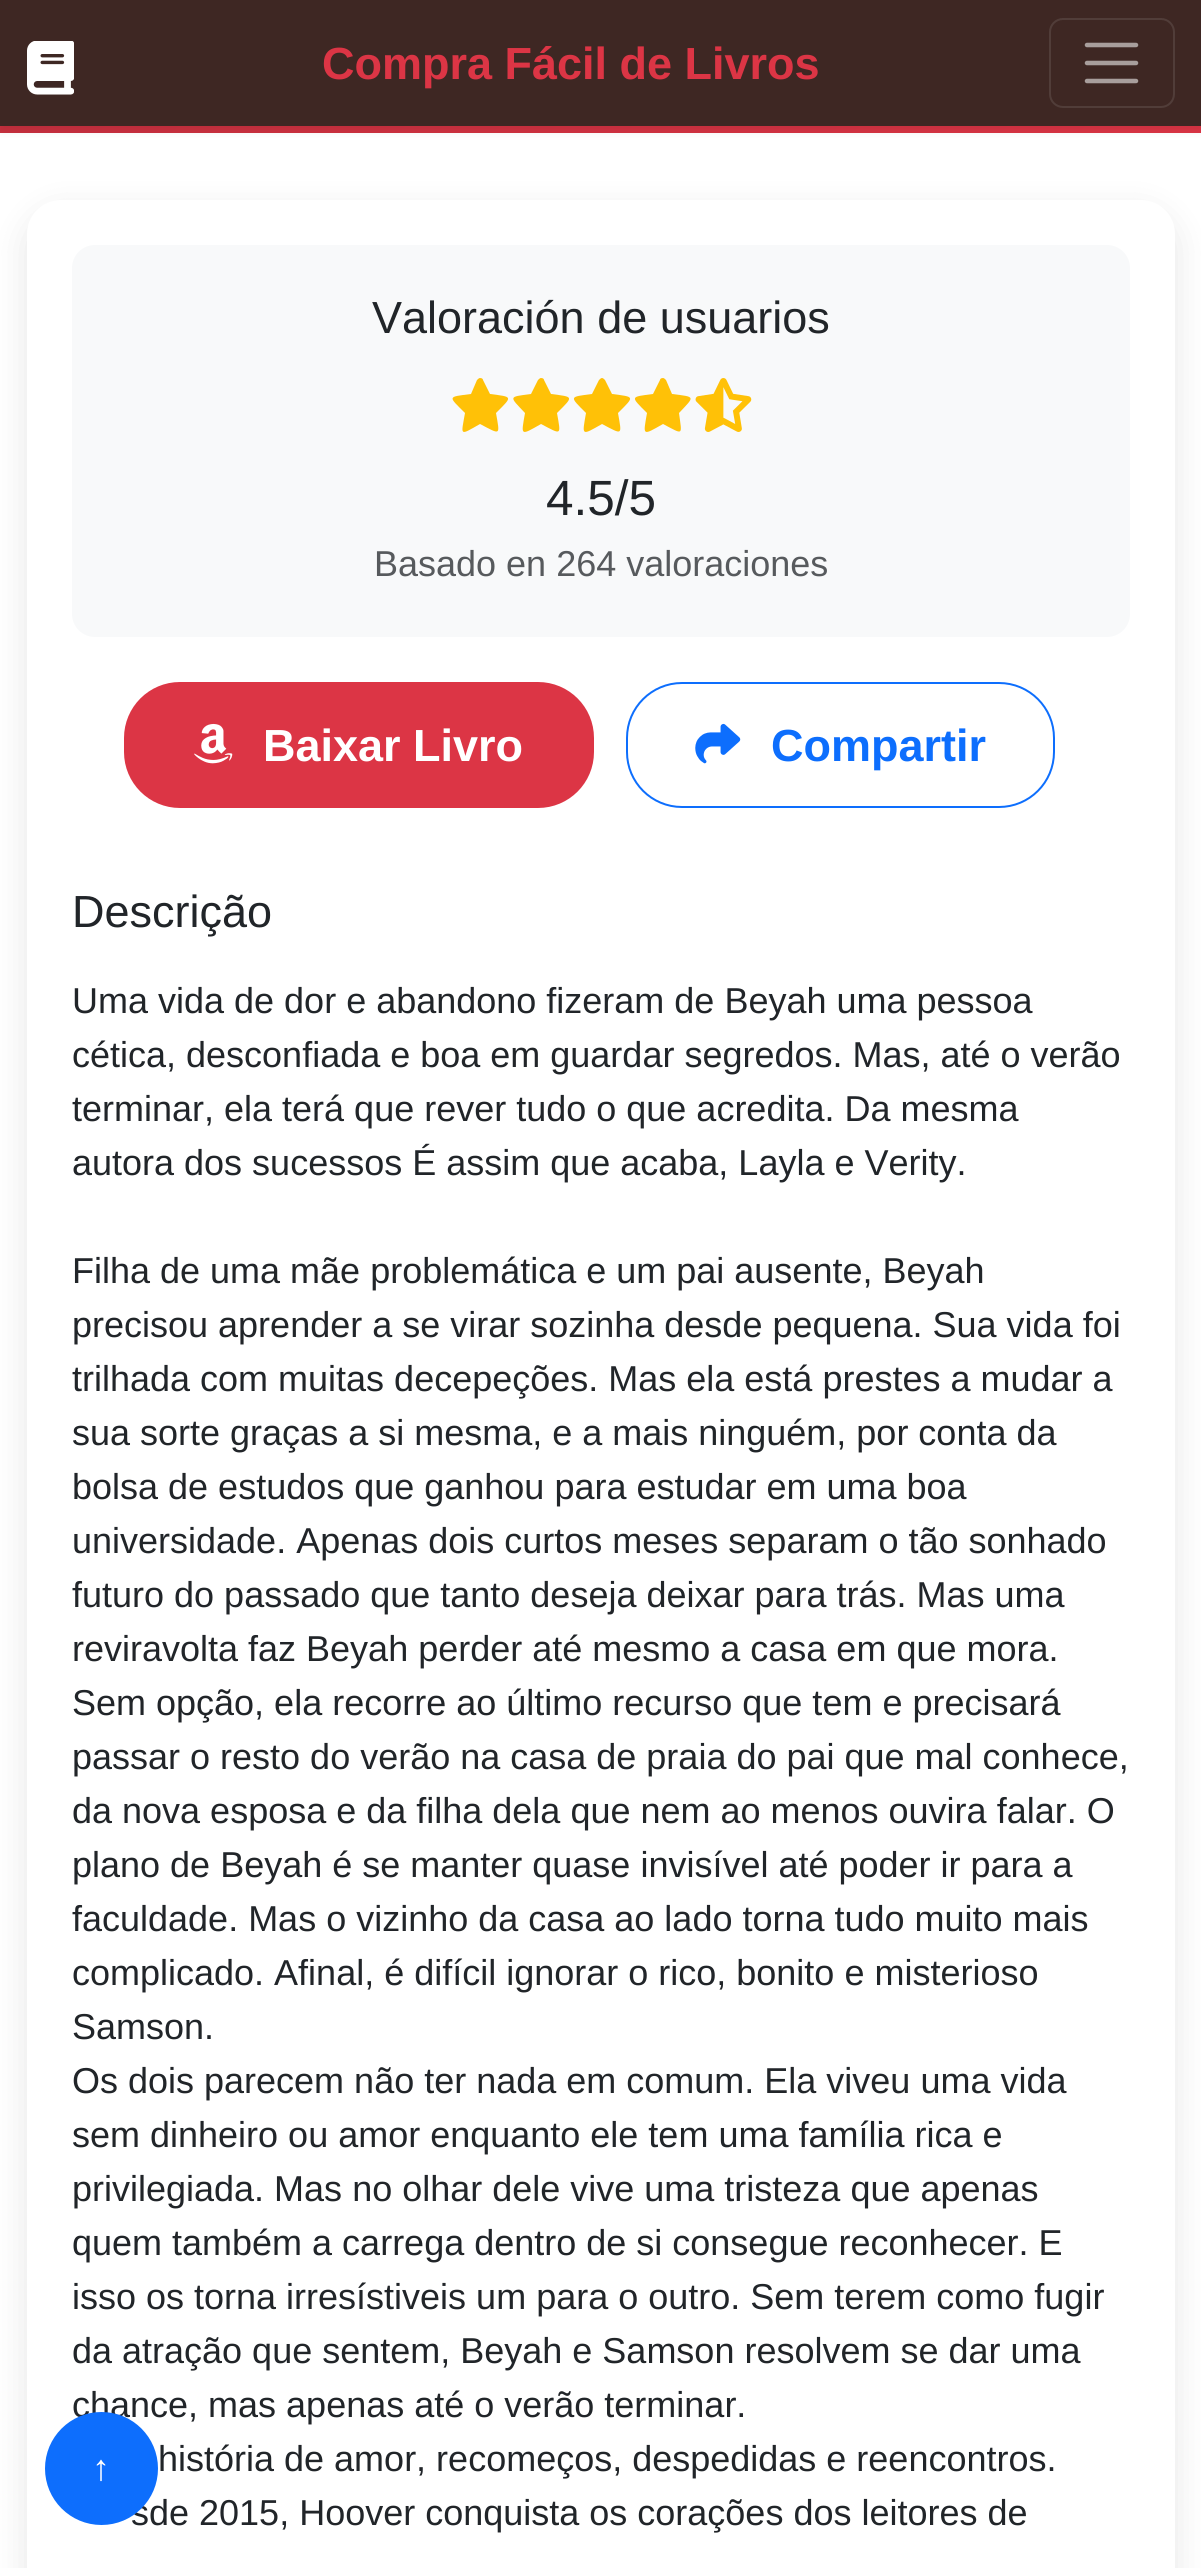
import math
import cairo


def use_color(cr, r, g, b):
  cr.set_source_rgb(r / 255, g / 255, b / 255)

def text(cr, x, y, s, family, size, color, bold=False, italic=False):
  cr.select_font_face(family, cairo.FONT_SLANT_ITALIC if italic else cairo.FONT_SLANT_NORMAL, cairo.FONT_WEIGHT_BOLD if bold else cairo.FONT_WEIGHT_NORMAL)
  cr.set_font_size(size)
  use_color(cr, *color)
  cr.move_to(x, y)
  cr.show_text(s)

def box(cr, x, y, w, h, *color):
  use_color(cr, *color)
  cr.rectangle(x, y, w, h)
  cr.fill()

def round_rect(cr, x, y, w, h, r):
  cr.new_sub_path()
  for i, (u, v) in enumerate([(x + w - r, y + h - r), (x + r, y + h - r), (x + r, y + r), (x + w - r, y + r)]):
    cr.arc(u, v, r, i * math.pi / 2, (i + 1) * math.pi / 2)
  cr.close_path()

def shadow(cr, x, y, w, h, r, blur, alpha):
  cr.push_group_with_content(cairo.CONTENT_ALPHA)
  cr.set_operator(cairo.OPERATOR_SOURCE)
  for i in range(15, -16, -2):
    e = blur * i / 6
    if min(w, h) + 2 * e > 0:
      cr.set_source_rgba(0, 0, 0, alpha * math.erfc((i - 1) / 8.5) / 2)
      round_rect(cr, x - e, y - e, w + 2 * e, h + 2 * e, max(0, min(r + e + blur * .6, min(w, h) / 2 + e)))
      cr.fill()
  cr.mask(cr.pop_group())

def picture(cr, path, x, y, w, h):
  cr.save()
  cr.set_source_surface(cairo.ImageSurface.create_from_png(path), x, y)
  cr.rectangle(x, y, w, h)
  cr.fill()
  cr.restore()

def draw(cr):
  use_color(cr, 255, 255, 255)
  cr.paint()
  gradient = cairo.LinearGradient(-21, -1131, 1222, 112)
  gradient.add_color_stop_rgba(0, 0.69, 0.165, 0.216, 1)
  gradient.add_color_stop_rgba(1, 0.863, 0.208, 0.271, 1)
  cr.set_source(gradient)
  cr.rectangle(0, 126, 1201, 7)
  cr.fill()
  use_color(cr, 0, 0, 0)
  shadow(cr, 0, 5, 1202, 126, 0, 4.5, 0.07)
  box(cr, 0, 0, 1201, 126, 62, 39, 35)
  picture(cr, "img_01.png", 27, 41, 47, 54)
  round_rect(cr, 1050, 19, 124, 88, 13)
  use_color(cr, 81, 61, 57)
  cr.stroke()
  cr.new_path()
  cr.move_to(1087, 45)
  cr.line_to(1136, 45)
  cr.move_to(1087, 63)
  cr.line_to(1136, 63)
  cr.move_to(1087, 81)
  cr.line_to(1136, 81)
  use_color(cr, 168, 158, 156)
  cr.set_line_width(4.5)
  cr.set_line_cap(cairo.LINE_CAP_ROUND)
  cr.stroke()
  use_color(cr, 0, 0, 0)
  shadow(cr, 27, 212, 1148, 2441, 34, 17, 0.1)
  use_color(cr, 255, 255, 255)
  round_rect(cr, 27, 200, 1148, 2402, 34)
  cr.fill()
  use_color(cr, 248, 249, 250)
  round_rect(cr, 72, 245, 1058, 392, 23)
  cr.fill()
  use_color(cr, 255, 193, 7)
  cr.new_path()
  cr.move_to(483, 380)
  cr.curve_to(483, 379, 482, 378, 480, 378)
  cr.curve_to(479, 378, 478, 379, 477, 380)
  cr.line_to(471, 394)
  cr.curve_to(447, 397, 448, 396, 465, 413)
  cr.curve_to(461, 436, 459, 436, 480, 424)
  cr.curve_to(501, 435, 500, 436, 496, 413)
  cr.curve_to(513, 396, 513, 397, 490, 394)
  cr.close_path()
  cr.fill()
  cr.new_path()
  cr.move_to(544, 380)
  cr.curve_to(544, 379, 543, 378, 541, 378)
  cr.curve_to(540, 378, 539, 379, 538, 380)
  cr.line_to(531, 394)
  cr.curve_to(508, 397, 509, 396, 525, 413)
  cr.curve_to(521, 436, 520, 436, 541, 424)
  cr.curve_to(562, 435, 561, 436, 557, 413)
  cr.curve_to(574, 396, 574, 397, 551, 394)
  cr.close_path()
  cr.fill()
  cr.new_path()
  cr.move_to(605, 380)
  cr.curve_to(604, 379, 603, 378, 602, 378)
  cr.curve_to(601, 378, 600, 379, 599, 380)
  cr.line_to(592, 394)
  cr.curve_to(569, 397, 569, 396, 586, 413)
  cr.curve_to(582, 436, 581, 436, 602, 424)
  cr.curve_to(623, 435, 622, 436, 618, 413)
  cr.curve_to(635, 396, 635, 397, 612, 394)
  cr.close_path()
  cr.fill()
  cr.new_path()
  cr.move_to(666, 380)
  cr.curve_to(665, 379, 664, 378, 663, 378)
  cr.curve_to(661, 378, 660, 379, 660, 380)
  cr.line_to(653, 394)
  cr.curve_to(630, 397, 630, 396, 647, 413)
  cr.curve_to(643, 436, 642, 436, 663, 424)
  cr.curve_to(684, 435, 682, 436, 679, 413)
  cr.curve_to(695, 396, 696, 397, 672, 394)
  cr.close_path()
  cr.fill()
  picture(cr, "img_02.png", 695, 378, 57, 54)
  use_color(cr, 220, 53, 69)
  round_rect(cr, 125, 683, 468, 124, 55)
  cr.fill_preserve()
  cr.set_line_width(2)
  cr.set_line_cap(cairo.LINE_CAP_BUTT)
  cr.stroke()
  picture(cr, "img_03.png", 194, 723, 39, 41)
  round_rect(cr, 627, 683, 427, 124, 55)
  use_color(cr, 13, 110, 253)
  cr.stroke()
  picture(cr, "img_04.png", 695, 723, 46, 41)
  text(cr, 322, 79, "Compra Fácil de Livros", "Liberation Sans", 45, (220, 53, 69), bold=True)
  text(cr, 372, 333, "Valoración de usuarios", "Liberation Sans", 45, (33, 37, 41))
  text(cr, 546, 515, "4.5/5", "Liberation Sans", 49.5, (33, 37, 41))
  text(cr, 374, 576, "Basado en 264 valoraciones", "Liberation Sans", 36, (87, 90, 93))
  text(cr, 263, 761, "Baixar Livro", "Liberation Sans", 45, (255, 255, 255), bold=True)
  text(cr, 771, 761, "Compartir", "Liberation Sans", 45, (13, 110, 253), bold=True)
  text(cr, 72, 927, "Descrição", "Liberation Sans", 45, (33, 37, 41))
  text(cr, 72, 1013, "Uma vida de dor e abandono fizeram de Beyah uma pessoa", "Liberation Sans", 36, (33, 37, 41))
  text(cr, 72, 1067, "cética, desconfiada e boa em guardar segredos. Mas, até o verão", "Liberation Sans", 36, (33, 37, 41))
  text(cr, 72, 1121, "terminar, ela terá que rever tudo o que acredita. Da mesma", "Liberation Sans", 36, (33, 37, 41))
  text(cr, 72, 1175, "autora dos sucessos É assim que acaba, Layla e Verity.", "Liberation Sans", 36, (33, 37, 41))
  text(cr, 72, 1283, "Filha de uma mãe problemática e um pai ausente, Beyah", "Liberation Sans", 36, (33, 37, 41))
  text(cr, 72, 1337, "precisou aprender a se virar sozinha desde pequena. Sua vida foi", "Liberation Sans", 36, (33, 37, 41))
  text(cr, 72, 1391, "trilhada com muitas decepeções. Mas ela está prestes a mudar a", "Liberation Sans", 36, (33, 37, 41))
  text(cr, 72, 1445, "sua sorte graças a si mesma, e a mais ninguém, por conta da", "Liberation Sans", 36, (33, 37, 41))
  text(cr, 72, 1499, "bolsa de estudos que ganhou para estudar em uma boa", "Liberation Sans", 36, (33, 37, 41))
  text(cr, 72, 1553, "universidade. Apenas dois curtos meses separam o tão sonhado", "Liberation Sans", 36, (33, 37, 41))
  text(cr, 72, 1607, "futuro do passado que tanto deseja deixar para trás. Mas uma", "Liberation Sans", 36, (33, 37, 41))
  text(cr, 72, 1661, "reviravolta faz Beyah perder até mesmo a casa em que mora.", "Liberation Sans", 36, (33, 37, 41))
  text(cr, 72, 1715, "Sem opção, ela recorre ao último recurso que tem e precisará", "Liberation Sans", 36, (33, 37, 41))
  text(cr, 72, 1769, "passar o resto do verão na casa de praia do pai que mal conhece,", "Liberation Sans", 36, (33, 37, 41))
  text(cr, 72, 1823, "da nova esposa e da filha dela que nem ao menos ouvira falar. O", "Liberation Sans", 36, (33, 37, 41))
  text(cr, 72, 1877, "plano de Beyah é se manter quase invisível até poder ir para a", "Liberation Sans", 36, (33, 37, 41))
  text(cr, 72, 1931, "faculdade. Mas o vizinho da casa ao lado torna tudo muito mais", "Liberation Sans", 36, (33, 37, 41))
  text(cr, 72, 1985, "complicado. Afinal, é difícil ignorar o rico, bonito e misterioso", "Liberation Sans", 36, (33, 37, 41))
  text(cr, 72, 2039, "Samson.", "Liberation Sans", 36, (33, 37, 41))
  text(cr, 72, 2093, "Os dois parecem não ter nada em comum. Ela viveu uma vida", "Liberation Sans", 36, (33, 37, 41))
  text(cr, 72, 2147, "sem dinheiro ou amor enquanto ele tem uma família rica e", "Liberation Sans", 36, (33, 37, 41))
  text(cr, 72, 2201, "privilegiada. Mas no olhar dele vive uma tristeza que apenas", "Liberation Sans", 36, (33, 37, 41))
  text(cr, 72, 2255, "quem também a carrega dentro de si consegue reconhecer. E", "Liberation Sans", 36, (33, 37, 41))
  text(cr, 72, 2309, "isso os torna irresístiveis um para o outro. Sem terem como fugir", "Liberation Sans", 36, (33, 37, 41))
  text(cr, 72, 2363, "da atração que sentem, Beyah e Samson resolvem se dar uma", "Liberation Sans", 36, (33, 37, 41))
  text(cr, 72, 2417, "chance, mas apenas até o verão terminar.", "Liberation Sans", 36, (33, 37, 41))
  text(cr, 158, 2471, "história de amor, recomeços, despedidas e reencontros.", "Liberation Sans", 36, (33, 37, 41))
  text(cr, 131, 2525, "sde 2015, Hoover conquista os corações dos leitores de", "Liberation Sans", 36, (33, 37, 41))
  use_color(cr, 13, 110, 253)
  cr.new_path()
  cr.arc(101.5, 2468.5, 55.5, 0, 2 * math.pi)
  cr.fill_preserve()
  cr.stroke()
  text(cr, 92, 2480, "↑", "Liberation Sans", 36, (255, 255, 255))


surface = cairo.ImageSurface(cairo.FORMAT_RGB24, 1201, 2568)
cr = cairo.Context(surface)
options = cairo.FontOptions()
options.set_hint_metrics(cairo.HINT_METRICS_OFF)
options.set_hint_style(cairo.HINT_STYLE_NONE)
cr.set_font_options(options)
cr.set_miter_limit(4)
draw(cr)
surface.write_to_png("out.png")
